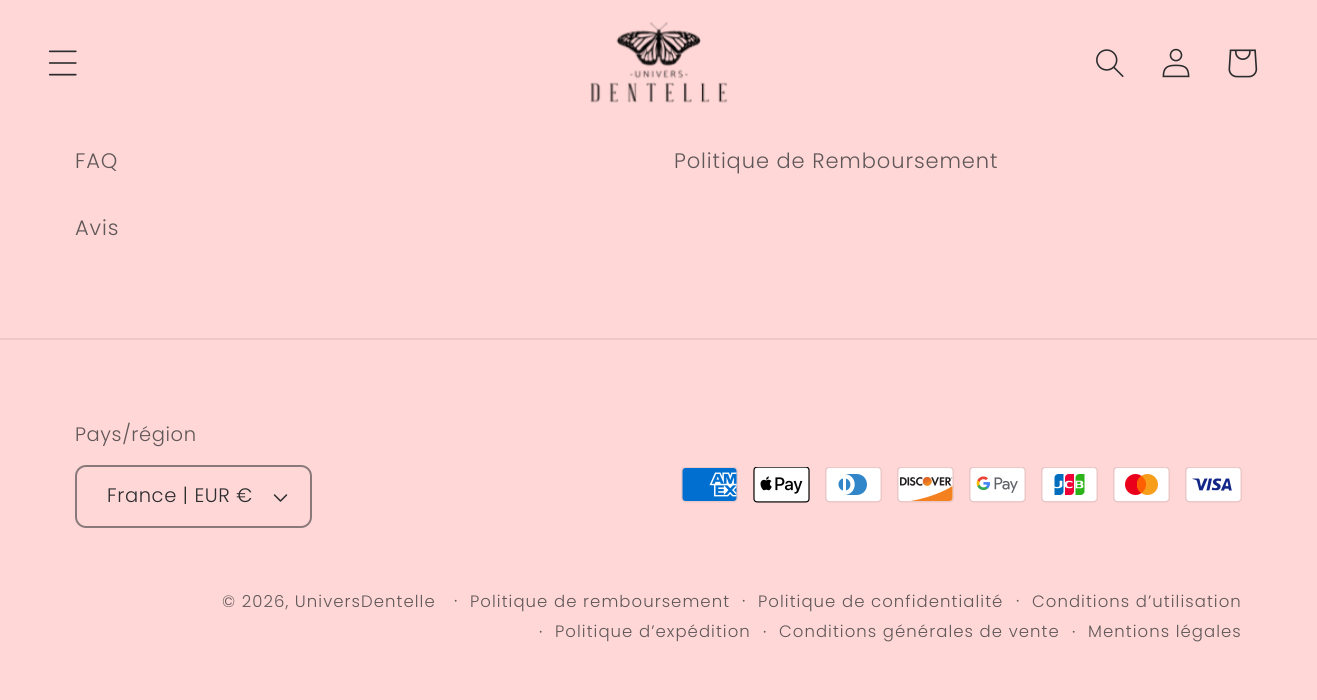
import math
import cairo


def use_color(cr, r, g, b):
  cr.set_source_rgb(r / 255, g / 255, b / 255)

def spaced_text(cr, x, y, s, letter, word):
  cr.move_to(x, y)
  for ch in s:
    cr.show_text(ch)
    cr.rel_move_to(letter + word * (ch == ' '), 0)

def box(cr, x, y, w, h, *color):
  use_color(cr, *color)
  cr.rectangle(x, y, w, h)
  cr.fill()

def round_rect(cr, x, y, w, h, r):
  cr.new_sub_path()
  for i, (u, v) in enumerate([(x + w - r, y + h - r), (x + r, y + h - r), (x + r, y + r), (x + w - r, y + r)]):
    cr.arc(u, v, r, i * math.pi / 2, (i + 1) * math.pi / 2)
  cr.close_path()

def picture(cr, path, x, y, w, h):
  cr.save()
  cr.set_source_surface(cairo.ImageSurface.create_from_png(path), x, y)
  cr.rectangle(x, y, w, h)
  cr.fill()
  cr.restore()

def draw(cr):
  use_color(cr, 255, 215, 215)
  cr.paint()
  picture(cr, "img_01.png", 48, 50, 29, 26)
  picture(cr, "img_02.png", 590, 22, 138, 81)
  picture(cr, "img_03.png", 1096, 49, 28, 28)
  picture(cr, "img_04.png", 1162, 48, 28, 30)
  picture(cr, "img_05.png", 1228, 49, 30, 29)
  box(cr, 0, 338, 1317, 2, 238, 201, 201)
  picture(cr, "img_06.png", 273, 494, 15, 8)
  round_rect(cr, 76, 466, 235, 61, 10)
  use_color(cr, 138, 121, 122)
  cr.stroke()
  picture(cr, "img_07.png", 681, 467, 57, 36)
  picture(cr, "img_08.png", 753, 467, 57, 36)
  picture(cr, "img_09.png", 825, 467, 57, 36)
  picture(cr, "img_10.png", 897, 467, 57, 36)
  picture(cr, "img_11.png", 969, 467, 57, 36)
  picture(cr, "img_12.png", 1041, 467, 57, 36)
  picture(cr, "img_13.png", 1113, 467, 57, 36)
  picture(cr, "img_14.png", 1185, 467, 57, 36)
  cr.select_font_face("Poppins Light")
  cr.set_font_size(21)
  use_color(cr, 96, 87, 88)
  spaced_text(cr, 75, 168, "FAQ", 0.9, 0)
  spaced_text(cr, 75, 235, "Avis", 0.9, 0)
  spaced_text(cr, 674, 168, "Politique de Remboursement", 0.9, 0)
  cr.set_font_size(19.5)
  spaced_text(cr, 75, 441, "Pays/région", 0.6, 0)
  use_color(cr, 43, 44, 45)
  spaced_text(cr, 107, 502, "France | EUR €", 0.6, 0)
  cr.set_font_size(16.5)
  use_color(cr, 96, 87, 88)
  spaced_text(cr, 222, 607, "© 2026, UniversDentelle", 1.05, 0)
  cr.set_font_size(18)
  spaced_text(cr, 454, 607, "·", 1.05, 0)
  cr.set_font_size(16.5)
  spaced_text(cr, 470, 607, "Politique de remboursement", 1.05, 0)
  cr.set_font_size(18)
  spaced_text(cr, 742, 607, "·", 1.05, 0)
  cr.set_font_size(16.5)
  spaced_text(cr, 758, 607, "Politique de confidentialité", 1.05, 0)
  cr.set_font_size(18)
  spaced_text(cr, 1016, 607, "·", 1.05, 0)
  cr.set_font_size(16.5)
  spaced_text(cr, 1032, 607, "Conditions d’utilisation", 1.05, 0)
  cr.set_font_size(18)
  spaced_text(cr, 539, 638, "·", 1.05, 0)
  cr.set_font_size(16.5)
  spaced_text(cr, 555, 637, "Politique d’expédition", 1.05, 0)
  cr.set_font_size(18)
  spaced_text(cr, 763, 638, "·", 1.05, 0)
  cr.set_font_size(16.5)
  spaced_text(cr, 779, 637, "Conditions générales de vente", 1.05, 0)
  cr.set_font_size(18)
  spaced_text(cr, 1072, 638, "·", 1.05, 0)
  cr.set_font_size(16.5)
  spaced_text(cr, 1088, 637, "Mentions légales", 1.05, 0)


surface = cairo.ImageSurface(cairo.FORMAT_RGB24, 1317, 700)
cr = cairo.Context(surface)
options = cairo.FontOptions()
options.set_hint_metrics(cairo.HINT_METRICS_OFF)
options.set_hint_style(cairo.HINT_STYLE_NONE)
cr.set_font_options(options)
cr.set_miter_limit(4)
draw(cr)
surface.write_to_png("out.png")
